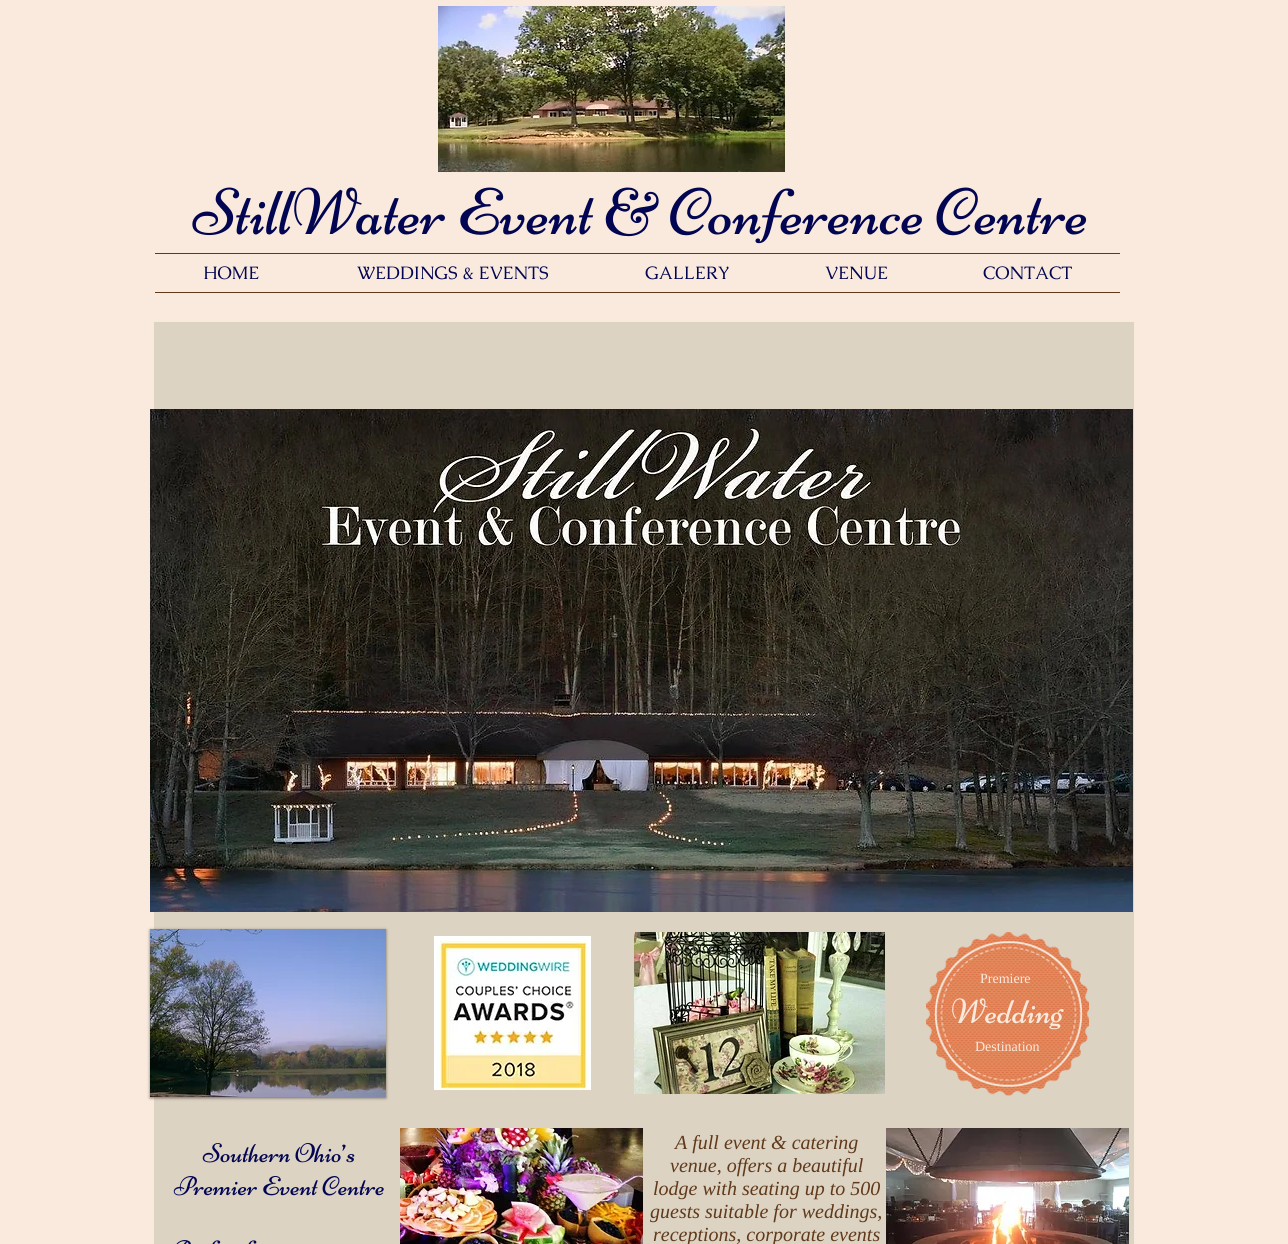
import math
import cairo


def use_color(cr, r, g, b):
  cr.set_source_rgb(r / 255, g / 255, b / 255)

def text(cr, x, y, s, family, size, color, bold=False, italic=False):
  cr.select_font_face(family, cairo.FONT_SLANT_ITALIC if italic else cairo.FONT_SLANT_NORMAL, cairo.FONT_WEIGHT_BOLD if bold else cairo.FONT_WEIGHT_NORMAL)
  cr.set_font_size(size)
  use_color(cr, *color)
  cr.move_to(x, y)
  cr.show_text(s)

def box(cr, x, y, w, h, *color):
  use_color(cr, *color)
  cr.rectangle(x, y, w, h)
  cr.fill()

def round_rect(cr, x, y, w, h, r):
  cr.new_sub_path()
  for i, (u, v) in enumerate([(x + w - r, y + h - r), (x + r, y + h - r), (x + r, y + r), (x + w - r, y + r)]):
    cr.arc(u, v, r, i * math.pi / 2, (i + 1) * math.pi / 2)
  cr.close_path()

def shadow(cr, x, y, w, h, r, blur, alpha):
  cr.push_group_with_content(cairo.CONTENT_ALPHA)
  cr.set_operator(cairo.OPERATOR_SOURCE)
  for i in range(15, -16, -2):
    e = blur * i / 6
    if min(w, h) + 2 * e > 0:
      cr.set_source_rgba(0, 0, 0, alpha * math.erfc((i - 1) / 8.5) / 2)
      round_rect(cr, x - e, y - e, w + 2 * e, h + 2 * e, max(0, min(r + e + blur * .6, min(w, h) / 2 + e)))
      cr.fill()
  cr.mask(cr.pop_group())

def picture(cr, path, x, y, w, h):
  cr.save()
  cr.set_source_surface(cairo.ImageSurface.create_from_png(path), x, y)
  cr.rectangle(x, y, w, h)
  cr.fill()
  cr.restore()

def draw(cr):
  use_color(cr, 249, 234, 221)
  cr.paint()
  picture(cr, "img_01.png", 438, 6, 347, 166)
  picture(cr, "img_02.png", 192, 187, 895, 57)
  box(cr, 155, 253, 965, 1, 96, 57, 26)
  box(cr, 155, 292, 965, 1, 96, 57, 26)
  box(cr, 154, 322, 980, 922, 220, 211, 195)
  picture(cr, "img_03.png", 150, 409, 983, 503)
  use_color(cr, 0, 0, 0)
  shadow(cr, 150, 930, 236, 168, 0, 1.5, 0.5)
  picture(cr, "img_04.png", 150, 929, 236, 168)
  picture(cr, "img_05.png", 434, 936, 157, 154)
  picture(cr, "img_06.png", 634, 932, 251, 162)
  picture(cr, "img_07.png", 926, 932, 163, 164)
  picture(cr, "img_08.png", 952, 998, 112, 32)
  picture(cr, "img_09.png", 202, 1143, 153, 20)
  picture(cr, "img_10.png", 173, 1176, 211, 20)
  picture(cr, "img_11.png", 176, 1240, 81, 4)
  picture(cr, "img_12.png", 400, 1128, 243, 116)
  picture(cr, "img_13.png", 886, 1128, 243, 116)
  text(cr, 203, 279, "HOME", "Caudex", 18, (2, 6, 82))
  text(cr, 357, 279, "WEDDINGS & EVENTS", "Caudex", 18, (2, 6, 82))
  text(cr, 645, 279, "GALLERY", "Caudex", 18, (2, 6, 82))
  text(cr, 825, 279, "VENUE", "Caudex", 18, (2, 6, 82))
  text(cr, 983, 279, "CONTACT", "Caudex", 18, (2, 6, 82))
  text(cr, 980, 983, "Premiere", "Liberation Serif", 14, (249, 234, 221))
  text(cr, 975, 1051, "Destination", "Liberation Serif", 14, (249, 234, 221))
  text(cr, 675, 1149, "A full event & catering", "Liberation Serif", 20, (96, 57, 26), italic=True)
  text(cr, 670, 1172, "venue, offers a beautiful", "Liberation Serif", 20, (96, 57, 26), italic=True)
  text(cr, 653, 1195, "lodge with seating up to 500", "Liberation Serif", 20, (96, 57, 26), italic=True)
  text(cr, 650, 1218, "guests suitable for weddings,", "Liberation Serif", 20, (96, 57, 26), italic=True)
  text(cr, 653, 1241, "receptions, corporate events", "Liberation Serif", 20, (96, 57, 26), italic=True)


surface = cairo.ImageSurface(cairo.FORMAT_RGB24, 1288, 1244)
cr = cairo.Context(surface)
options = cairo.FontOptions()
options.set_hint_metrics(cairo.HINT_METRICS_OFF)
options.set_hint_style(cairo.HINT_STYLE_NONE)
cr.set_font_options(options)
cr.set_miter_limit(4)
draw(cr)
surface.write_to_png("out.png")
